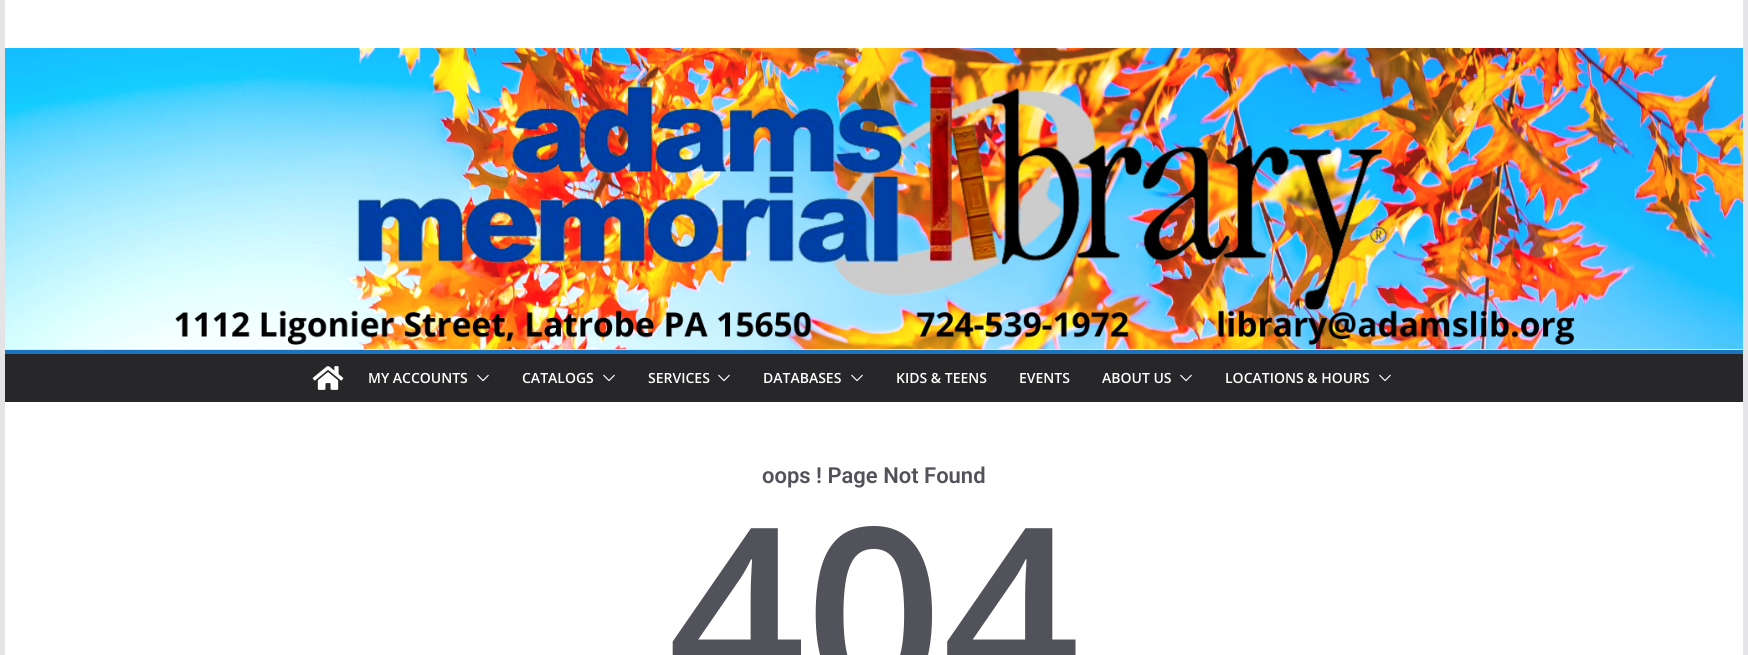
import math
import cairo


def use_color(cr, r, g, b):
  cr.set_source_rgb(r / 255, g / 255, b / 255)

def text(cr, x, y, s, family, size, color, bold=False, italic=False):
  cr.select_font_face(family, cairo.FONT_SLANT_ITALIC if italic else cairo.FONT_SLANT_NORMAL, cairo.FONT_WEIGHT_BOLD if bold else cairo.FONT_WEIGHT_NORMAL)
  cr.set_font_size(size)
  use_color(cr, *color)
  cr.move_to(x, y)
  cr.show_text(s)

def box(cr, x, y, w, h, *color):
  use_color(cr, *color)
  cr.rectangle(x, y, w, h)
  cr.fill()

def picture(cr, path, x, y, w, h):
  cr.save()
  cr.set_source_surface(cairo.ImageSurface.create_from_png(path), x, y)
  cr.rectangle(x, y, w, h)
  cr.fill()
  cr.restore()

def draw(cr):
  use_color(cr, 228, 228, 231)
  cr.paint()
  box(cr, 5, 0, 1738, 48, 255, 255, 255)
  picture(cr, "img_01.png", 5, 48, 1738, 301)
  box(cr, 5, 354, 1738, 48, 39, 39, 42)
  box(cr, 5, 350, 1738, 4, 30, 115, 190)
  picture(cr, "img_02.png", 312, 366, 32, 24)
  picture(cr, "img_03.png", 477, 374, 12, 8)
  picture(cr, "img_03.png", 603, 374, 12, 8)
  picture(cr, "img_03.png", 718, 374, 12, 8)
  picture(cr, "img_03.png", 851, 374, 12, 8)
  picture(cr, "img_03.png", 1180, 374, 12, 8)
  picture(cr, "img_03.png", 1379, 374, 12, 8)
  box(cr, 5, 402, 1738, 253, 255, 255, 255)
  text(cr, 368, 383, "MY ACCOUNTS", "Open Sans SemiBold", 14, (255, 255, 255))
  text(cr, 522, 383, "CATALOGS", "Open Sans SemiBold", 14, (255, 255, 255))
  text(cr, 648, 383, "SERVICES", "Open Sans SemiBold", 14, (255, 255, 255))
  text(cr, 763, 383, "DATABASES", "Open Sans SemiBold", 14, (255, 255, 255))
  text(cr, 896, 383, "KIDS & TEENS", "Open Sans SemiBold", 14, (255, 255, 255))
  text(cr, 1019, 383, "EVENTS", "Open Sans SemiBold", 14, (255, 255, 255))
  text(cr, 1102, 383, "ABOUT US", "Open Sans SemiBold", 14, (255, 255, 255))
  text(cr, 1225, 383, "LOCATIONS & HOURS", "Open Sans SemiBold", 14, (255, 255, 255))
  text(cr, 762, 483, "oops ! Page Not Found", "Roboto SemiBold", 22, (82, 82, 91))
  text(cr, 668, 700, "404", "Open Sans SemiBold", 240, (82, 82, 91))


surface = cairo.ImageSurface(cairo.FORMAT_RGB24, 1748, 655)
cr = cairo.Context(surface)
options = cairo.FontOptions()
options.set_hint_metrics(cairo.HINT_METRICS_OFF)
options.set_hint_style(cairo.HINT_STYLE_NONE)
cr.set_font_options(options)
cr.set_miter_limit(4)
draw(cr)
surface.write_to_png("out.png")
